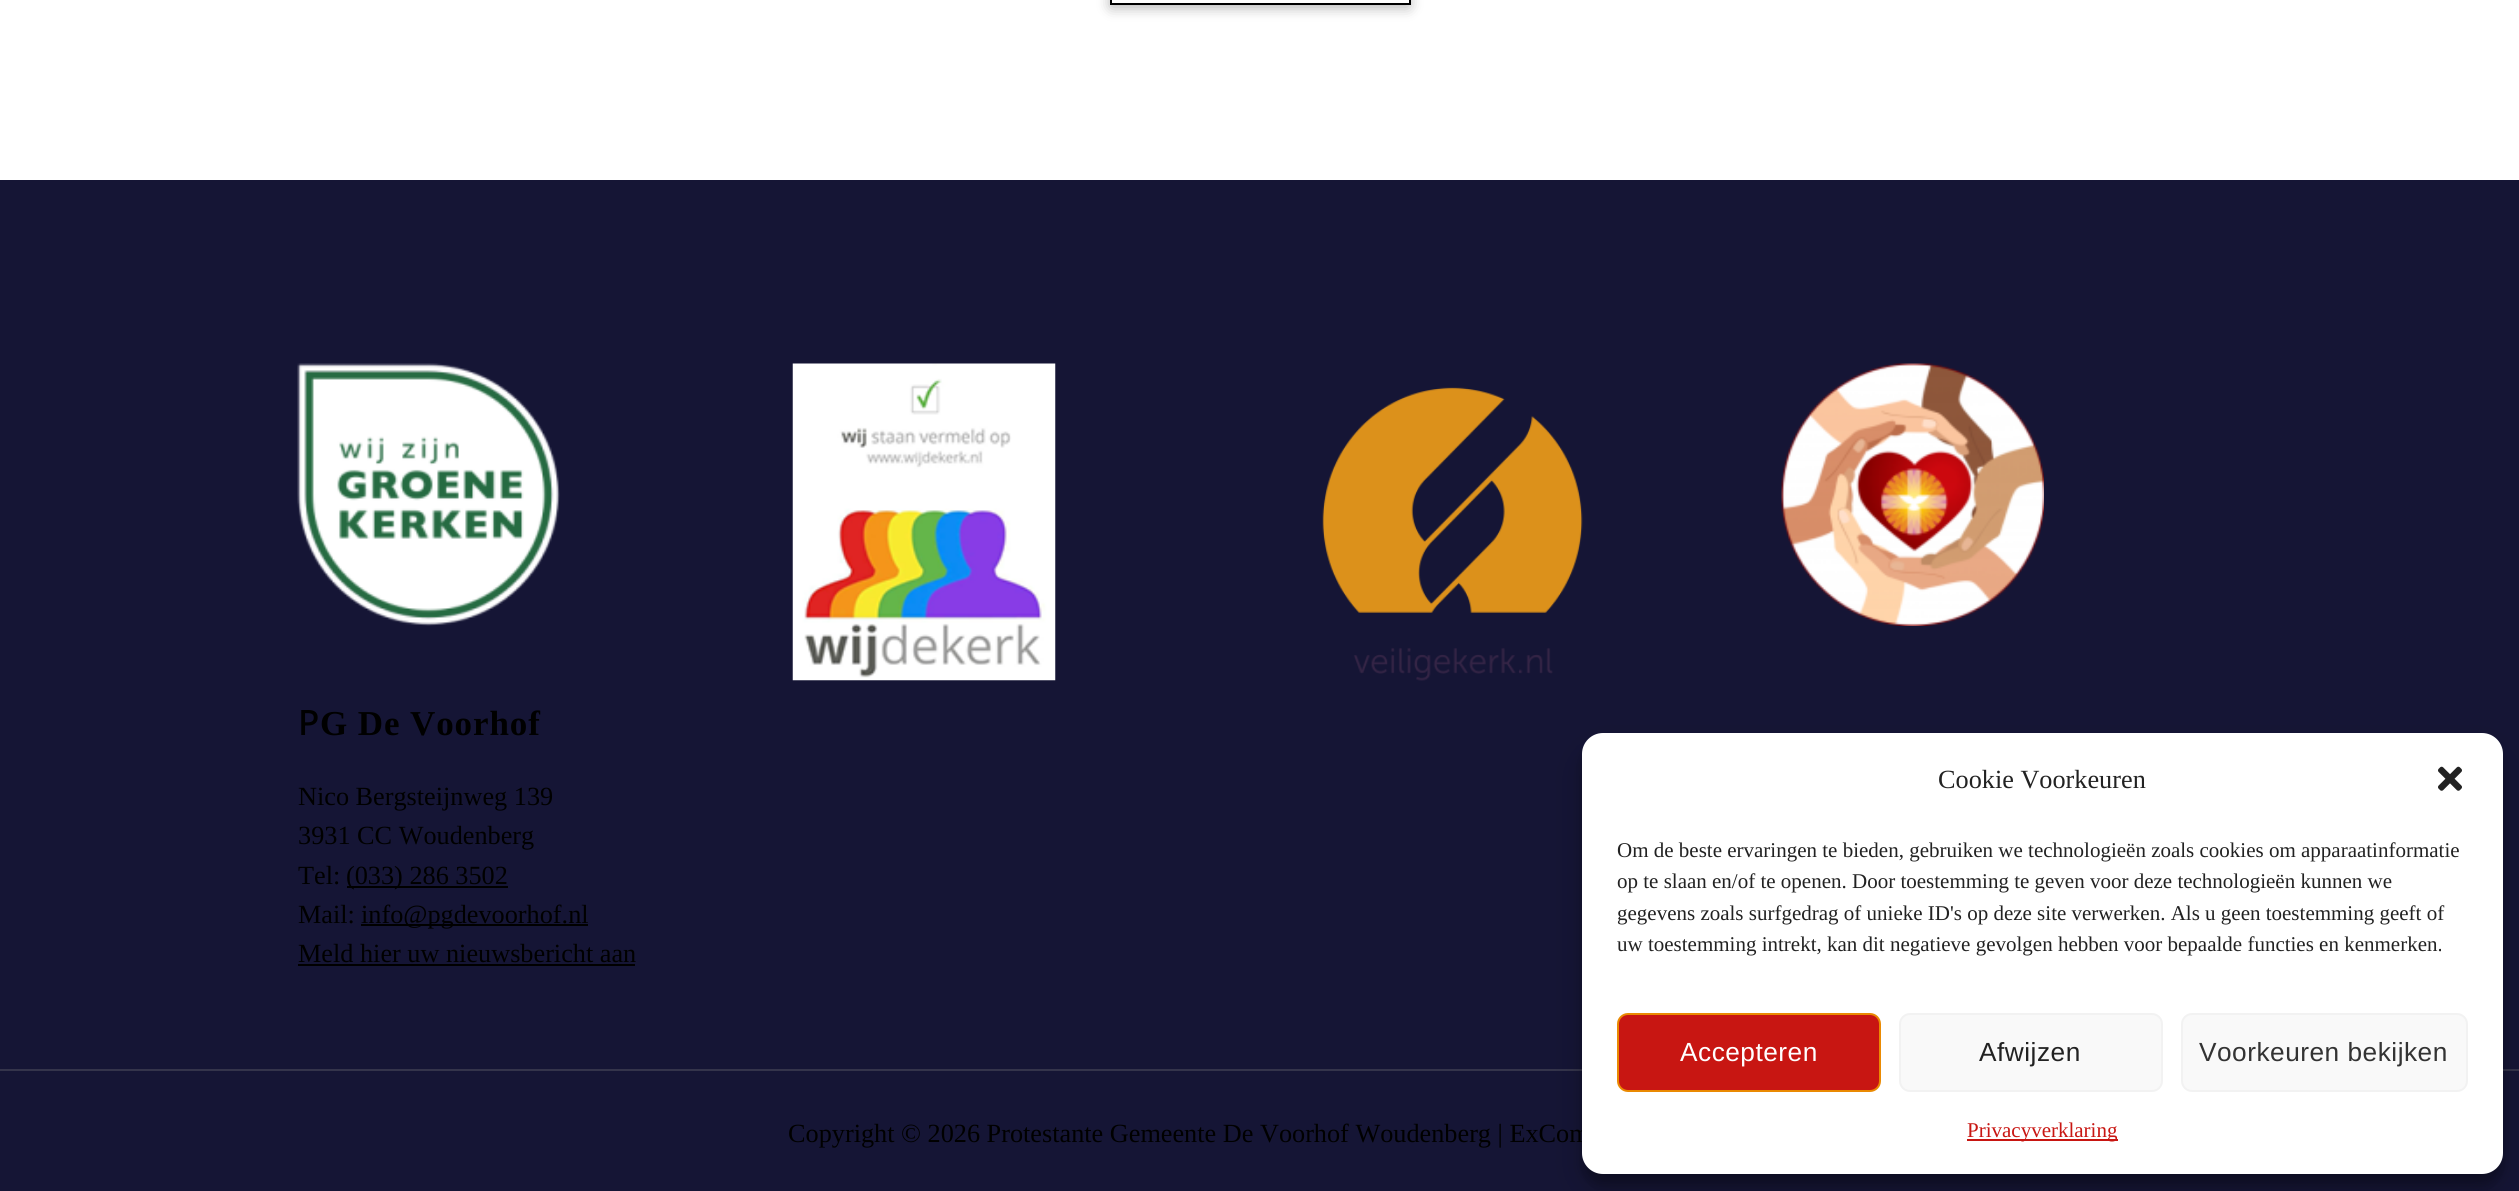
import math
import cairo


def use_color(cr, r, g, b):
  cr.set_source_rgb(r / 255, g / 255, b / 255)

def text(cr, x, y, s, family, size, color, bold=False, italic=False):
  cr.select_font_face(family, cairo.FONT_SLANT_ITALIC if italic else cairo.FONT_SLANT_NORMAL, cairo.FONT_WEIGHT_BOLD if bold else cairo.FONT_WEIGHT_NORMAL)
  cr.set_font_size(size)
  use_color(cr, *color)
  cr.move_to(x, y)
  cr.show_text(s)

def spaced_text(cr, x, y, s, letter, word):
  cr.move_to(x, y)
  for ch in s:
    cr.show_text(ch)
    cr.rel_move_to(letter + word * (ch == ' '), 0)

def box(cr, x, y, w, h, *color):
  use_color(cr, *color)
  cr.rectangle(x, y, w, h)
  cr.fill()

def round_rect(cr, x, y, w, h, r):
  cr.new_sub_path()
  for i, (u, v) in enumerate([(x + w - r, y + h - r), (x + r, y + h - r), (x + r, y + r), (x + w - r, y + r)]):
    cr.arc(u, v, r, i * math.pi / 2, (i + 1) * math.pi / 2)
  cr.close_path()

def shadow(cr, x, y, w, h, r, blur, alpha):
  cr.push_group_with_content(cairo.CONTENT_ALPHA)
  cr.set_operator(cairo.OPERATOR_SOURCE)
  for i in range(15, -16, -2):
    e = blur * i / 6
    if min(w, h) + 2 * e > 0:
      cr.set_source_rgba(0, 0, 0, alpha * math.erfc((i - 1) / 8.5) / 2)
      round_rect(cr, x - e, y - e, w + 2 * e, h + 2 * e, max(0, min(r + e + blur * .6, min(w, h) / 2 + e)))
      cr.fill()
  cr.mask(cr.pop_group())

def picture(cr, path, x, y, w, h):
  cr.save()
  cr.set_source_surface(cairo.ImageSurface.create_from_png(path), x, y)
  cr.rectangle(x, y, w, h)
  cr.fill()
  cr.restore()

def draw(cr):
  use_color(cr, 255, 255, 255)
  cr.paint()
  cr.save()
  cr.set_fill_rule(cairo.FILL_RULE_EVEN_ODD)
  cr.new_path()
  cr.move_to(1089, 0)
  cr.line_to(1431, 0)
  cr.line_to(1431, 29)
  cr.line_to(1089, 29)
  cr.close_path()
  cr.move_to(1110, -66)
  cr.line_to(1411, -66)
  cr.line_to(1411, 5)
  cr.line_to(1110, 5)
  cr.close_path()
  cr.clip()
  use_color(cr, 0, 0, 0)
  shadow(cr, 1111, -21, 298, 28, 0, 7, 0.32)
  cr.restore()
  cr.rectangle(1111, -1, 299, 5)
  use_color(cr, 0, 0, 0)
  cr.stroke()
  box(cr, 0, 180, 2519, 1011, 21, 21, 53)
  box(cr, 0, 1069, 2519, 2, 52, 52, 75)
  picture(cr, "img_01.png", 297, 363, 263, 263)
  picture(cr, "img_02.png", 792, 363, 264, 318)
  picture(cr, "img_03.png", 1322, 387, 261, 294)
  picture(cr, "img_04.png", 1781, 363, 263, 263)
  box(cr, 347, 886, 161, 2, 0, 0, 0)
  box(cr, 361, 924, 227, 2, 0, 0, 0)
  box(cr, 298, 964, 337, 2, 0, 0, 0)
  use_color(cr, 0, 0, 0)
  shadow(cr, 1582, 744, 921, 441, 21, 5, 0.23)
  shadow(cr, 1582, 751, 921, 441, 21, 17.5, 0.19)
  cr.select_font_face("Noto Sans Medium")
  cr.set_font_size(35)
  use_color(cr, 0, 0, 0)
  spaced_text(cr, 298, 735, "P", 0.9, 0)
  cr.select_font_face("Liberation Serif", cairo.FONT_SLANT_NORMAL, cairo.FONT_WEIGHT_BOLD)
  spaced_text(cr, 320, 735, "G De Voorhof", 0.9, 0)
  text(cr, 298, 805, "Nico Bergsteijnweg 139", "Liberation Serif", 26.25, (0, 0, 0))
  text(cr, 298, 844, "3931 CC Woudenberg", "Liberation Serif", 26.25, (0, 0, 0))
  text(cr, 298, 884, "Tel:", "Liberation Serif", 26.25, (0, 0, 0))
  text(cr, 346, 884, "(033) 286 3502", "Liberation Serif", 26.25, (0, 0, 0))
  text(cr, 298, 923, "Mail:", "Liberation Serif", 26.25, (0, 0, 0))
  text(cr, 361, 923, "info@pgdevoorhof.nl", "Liberation Serif", 26.25, (0, 0, 0))
  text(cr, 298, 962, "Meld hier uw nieuwsbericht aan", "Liberation Serif", 26.25, (0, 0, 0))
  text(cr, 788, 1142, "Copyright © 2026 Protestante Gemeente De Voorhof Woudenberg | ExCom", "Liberation Serif", 26.25, (0, 0, 0))
  use_color(cr, 255, 255, 255)
  round_rect(cr, 1582, 733, 921, 441, 21)
  cr.fill()
  text(cr, 1938, 788, "Cookie Voorkeuren", "Liberation Serif", 26.25, (34, 34, 34))
  picture(cr, "img_05.png", 2438, 766, 24, 25)
  text(cr, 1617, 857, "Om de beste ervaringen te bieden, gebruiken we technologieën zoals cookies om apparaatinformatie", "Liberation Serif", 21, (34, 34, 34))
  text(cr, 1617, 888, "op te slaan en/of te openen. Door toestemming te geven voor deze technologieën kunnen we", "Liberation Serif", 21, (34, 34, 34))
  text(cr, 1617, 920, "gegevens zoals surfgedrag of unieke ID's op deze site verwerken. Als u geen toestemming geeft of", "Liberation Serif", 21, (34, 34, 34))
  text(cr, 1617, 951, "uw toestemming intrekt, kan dit negatieve gevolgen hebben voor bepaalde functies en kenmerken.", "Liberation Serif", 21, (34, 34, 34))
  use_color(cr, 200, 22, 18)
  round_rect(cr, 1618, 1014, 262, 77, 10)
  cr.fill_preserve()
  use_color(cr, 234, 138, 2)
  cr.stroke()
  cr.select_font_face("Liberation Sans")
  cr.set_font_size(26.25)
  use_color(cr, 255, 255, 255)
  spaced_text(cr, 1680, 1061, "Accepteren", 0.5, 0)
  use_color(cr, 249, 249, 249)
  round_rect(cr, 1900, 1014, 262, 77, 10)
  cr.fill_preserve()
  use_color(cr, 242, 242, 242)
  cr.stroke()
  use_color(cr, 34, 34, 34)
  spaced_text(cr, 1979, 1061, "Afwijzen", 0.5, 0)
  use_color(cr, 249, 249, 249)
  round_rect(cr, 2182, 1014, 285, 77, 10)
  cr.fill_preserve()
  use_color(cr, 242, 242, 242)
  cr.stroke()
  use_color(cr, 51, 51, 51)
  spaced_text(cr, 2199, 1061, "Voorkeuren bekijken", 0.5, 0)
  box(cr, 1967, 1139, 151, 2, 200, 22, 18)
  text(cr, 1967, 1137, "Privacyverklaring", "Liberation Serif", 21, (200, 22, 18))


surface = cairo.ImageSurface(cairo.FORMAT_RGB24, 2519, 1191)
cr = cairo.Context(surface)
options = cairo.FontOptions()
options.set_hint_metrics(cairo.HINT_METRICS_OFF)
options.set_hint_style(cairo.HINT_STYLE_NONE)
cr.set_font_options(options)
cr.set_miter_limit(4)
draw(cr)
surface.write_to_png("out.png")
